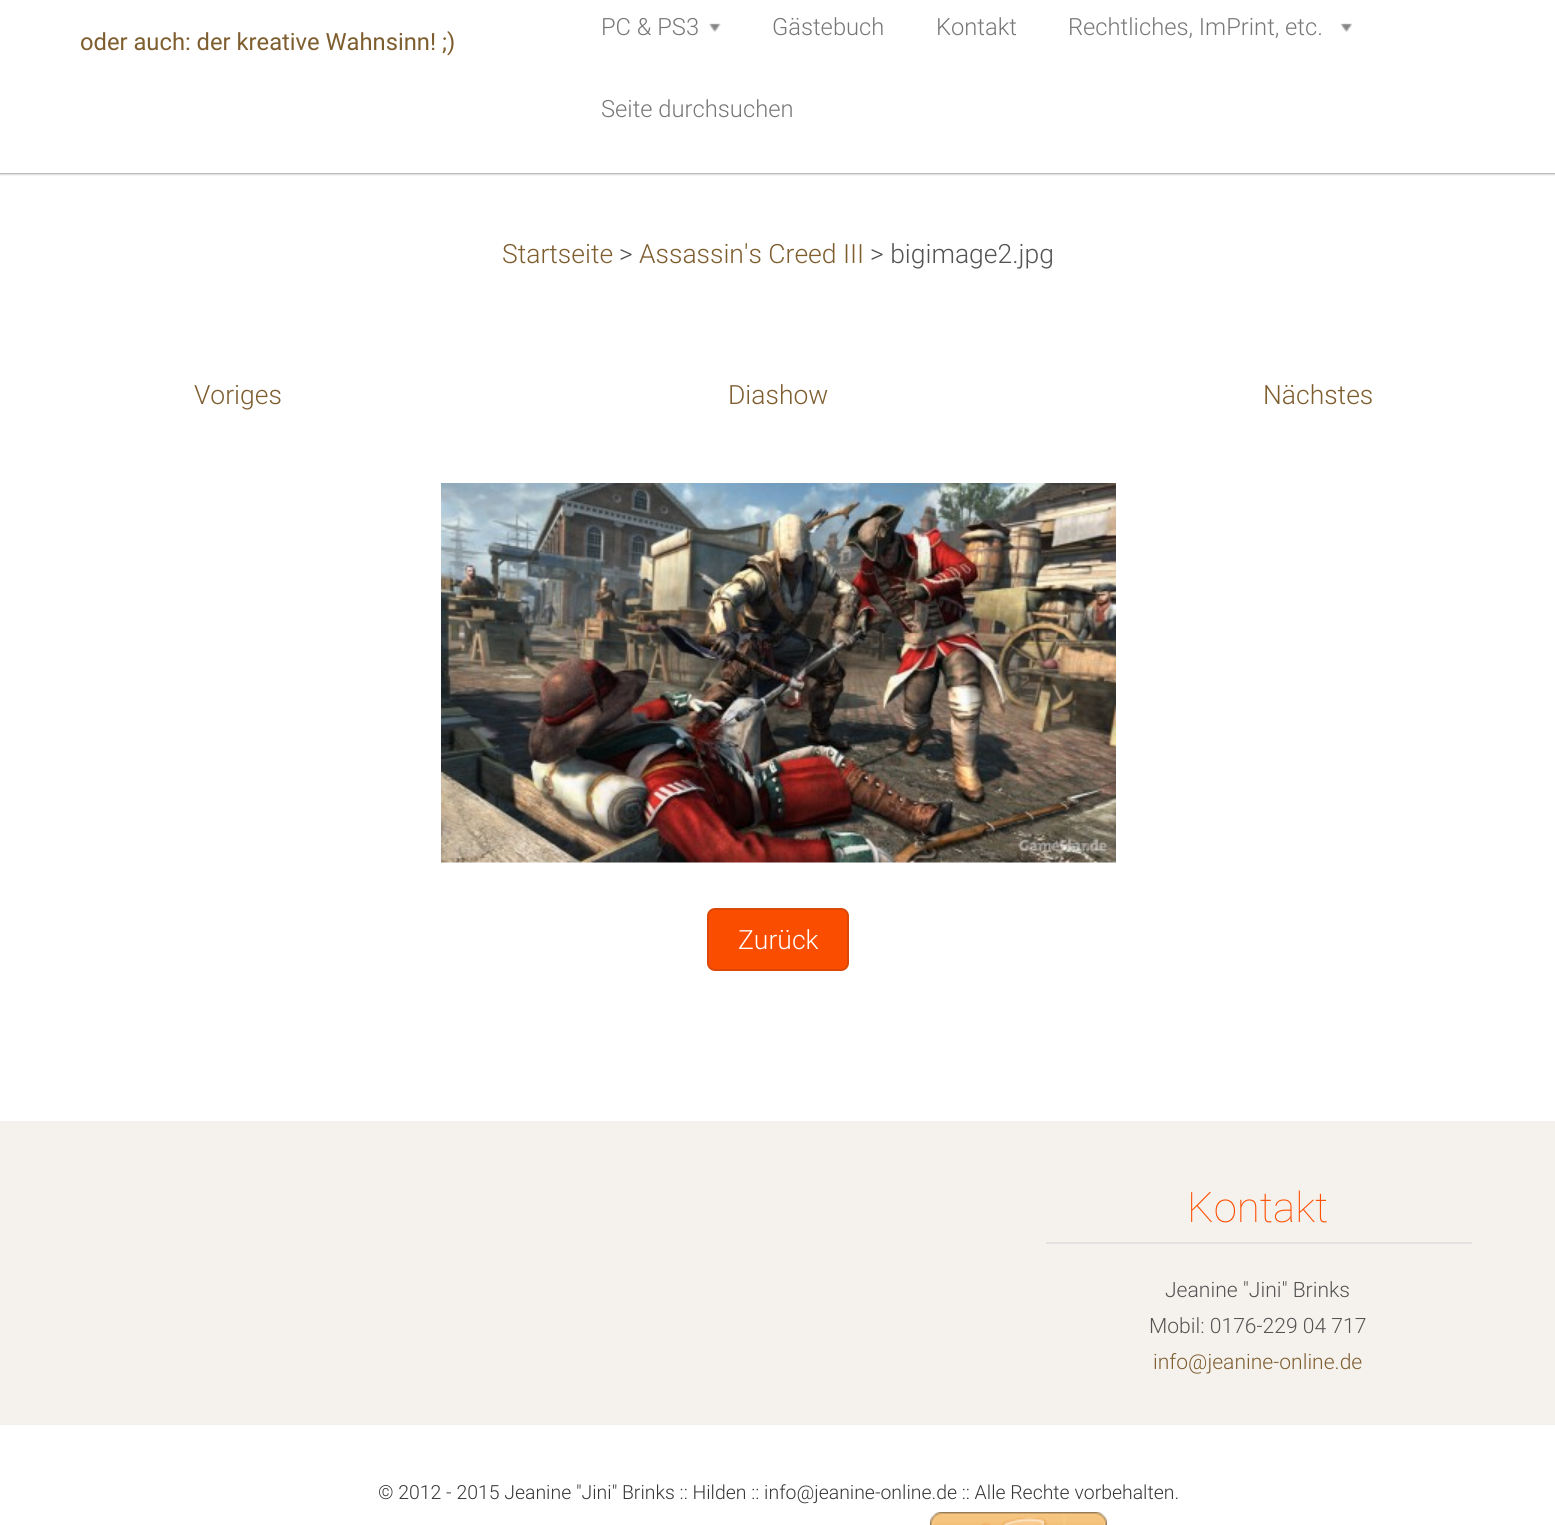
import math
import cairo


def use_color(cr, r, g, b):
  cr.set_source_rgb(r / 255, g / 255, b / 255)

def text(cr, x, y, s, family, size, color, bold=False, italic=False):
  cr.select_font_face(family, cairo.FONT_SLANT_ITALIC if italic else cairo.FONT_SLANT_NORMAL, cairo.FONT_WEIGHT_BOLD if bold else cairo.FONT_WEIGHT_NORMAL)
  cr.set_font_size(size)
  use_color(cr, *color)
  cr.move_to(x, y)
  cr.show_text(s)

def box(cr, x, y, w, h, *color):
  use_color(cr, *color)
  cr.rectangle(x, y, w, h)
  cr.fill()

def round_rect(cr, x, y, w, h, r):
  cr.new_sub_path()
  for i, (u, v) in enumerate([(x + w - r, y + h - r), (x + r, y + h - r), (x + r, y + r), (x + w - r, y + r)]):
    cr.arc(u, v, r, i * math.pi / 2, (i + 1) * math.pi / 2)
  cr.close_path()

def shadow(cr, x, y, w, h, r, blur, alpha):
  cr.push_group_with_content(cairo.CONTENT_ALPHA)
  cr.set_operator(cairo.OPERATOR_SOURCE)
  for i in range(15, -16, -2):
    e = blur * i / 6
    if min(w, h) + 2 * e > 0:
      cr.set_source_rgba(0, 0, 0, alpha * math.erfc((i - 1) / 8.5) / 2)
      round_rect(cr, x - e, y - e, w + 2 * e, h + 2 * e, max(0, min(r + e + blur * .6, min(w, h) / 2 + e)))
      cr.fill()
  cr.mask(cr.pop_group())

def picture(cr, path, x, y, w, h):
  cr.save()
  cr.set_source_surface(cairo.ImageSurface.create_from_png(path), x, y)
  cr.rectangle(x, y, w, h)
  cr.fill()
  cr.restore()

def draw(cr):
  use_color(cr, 255, 255, 255)
  cr.paint()
  use_color(cr, 76, 76, 76)
  shadow(cr, 0, -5, 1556, 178, 0, 1.5, 1)
  box(cr, 0, 0, 1555, 173, 255, 255, 255)
  picture(cr, "img_01.png", 709, 23, 12, 9)
  picture(cr, "img_02.png", 1341, 23, 11, 9)
  picture(cr, "img_03.png", 441, 483, 675, 380)
  use_color(cr, 251, 77, 0)
  round_rect(cr, 708, 909, 140, 61, 7)
  cr.fill_preserve()
  use_color(cr, 219, 72, 7)
  cr.stroke()
  box(cr, 0, 1121, 1555, 304, 245, 242, 238)
  box(cr, 1046, 1242, 426, 2, 226, 226, 226)
  picture(cr, "img_04.png", 930, 1512, 177, 13)
  text(cr, 80, 50, "oder auch: der kreative Wahnsinn! ;)", "Roboto", 23.75, (126, 93, 47))
  text(cr, 601, 35, "PC & PS3", "Roboto Light", 23.75, (119, 119, 119))
  text(cr, 772, 35, "Gästebuch", "Roboto Light", 23.75, (119, 119, 119))
  text(cr, 936, 35, "Kontakt", "Roboto Light", 23.75, (119, 119, 119))
  text(cr, 1068, 35, "Rechtliches, ImPrint, etc.", "Roboto Light", 23.75, (119, 119, 119))
  text(cr, 601, 117, "Seite durchsuchen", "Roboto Light", 23.75, (119, 119, 119))
  text(cr, 502, 263, "Startseite", "Roboto Light", 26.5, (126, 93, 47))
  text(cr, 619, 263, ">", "Roboto Light", 26.5, (83, 83, 83))
  text(cr, 639, 263, "Assassin's Creed III", "Roboto Light", 26.5, (126, 93, 47))
  text(cr, 870, 263, "> bigimage2.jpg", "Roboto Light", 26.5, (83, 83, 83))
  text(cr, 194, 404, "Voriges", "Roboto Light", 26.5, (126, 93, 47))
  text(cr, 728, 404, "Diashow", "Roboto Light", 26.5, (126, 93, 47))
  text(cr, 1263, 404, "Nächstes", "Roboto Light", 26.5, (126, 93, 47))
  text(cr, 738, 949, "Zurück", "Roboto Light", 26.5, (255, 255, 255))
  text(cr, 1187, 1222, "Kontakt", "Roboto Thin", 42, (255, 78, 0))
  text(cr, 1165, 1297, "Jeanine \"Jini\" Brinks", "Roboto Light", 21.1, (83, 83, 83))
  text(cr, 1149, 1333, "Mobil: 0176-229 04 717", "Roboto Light", 21.1, (83, 83, 83))
  text(cr, 1153, 1369, "info@jeanine-online.de", "Roboto Light", 21.1, (126, 93, 47))
  text(cr, 378, 1499, "© 2012 - 2015 Jeanine \"Jini\" Brinks :: Hilden :: info@jeanine-online.de :: Alle Rechte vorbehalten.", "Roboto Light", 19.45, (54, 54, 54))


surface = cairo.ImageSurface(cairo.FORMAT_RGB24, 1555, 1525)
cr = cairo.Context(surface)
options = cairo.FontOptions()
options.set_hint_metrics(cairo.HINT_METRICS_OFF)
options.set_hint_style(cairo.HINT_STYLE_NONE)
cr.set_font_options(options)
cr.set_miter_limit(4)
draw(cr)
surface.write_to_png("out.png")
